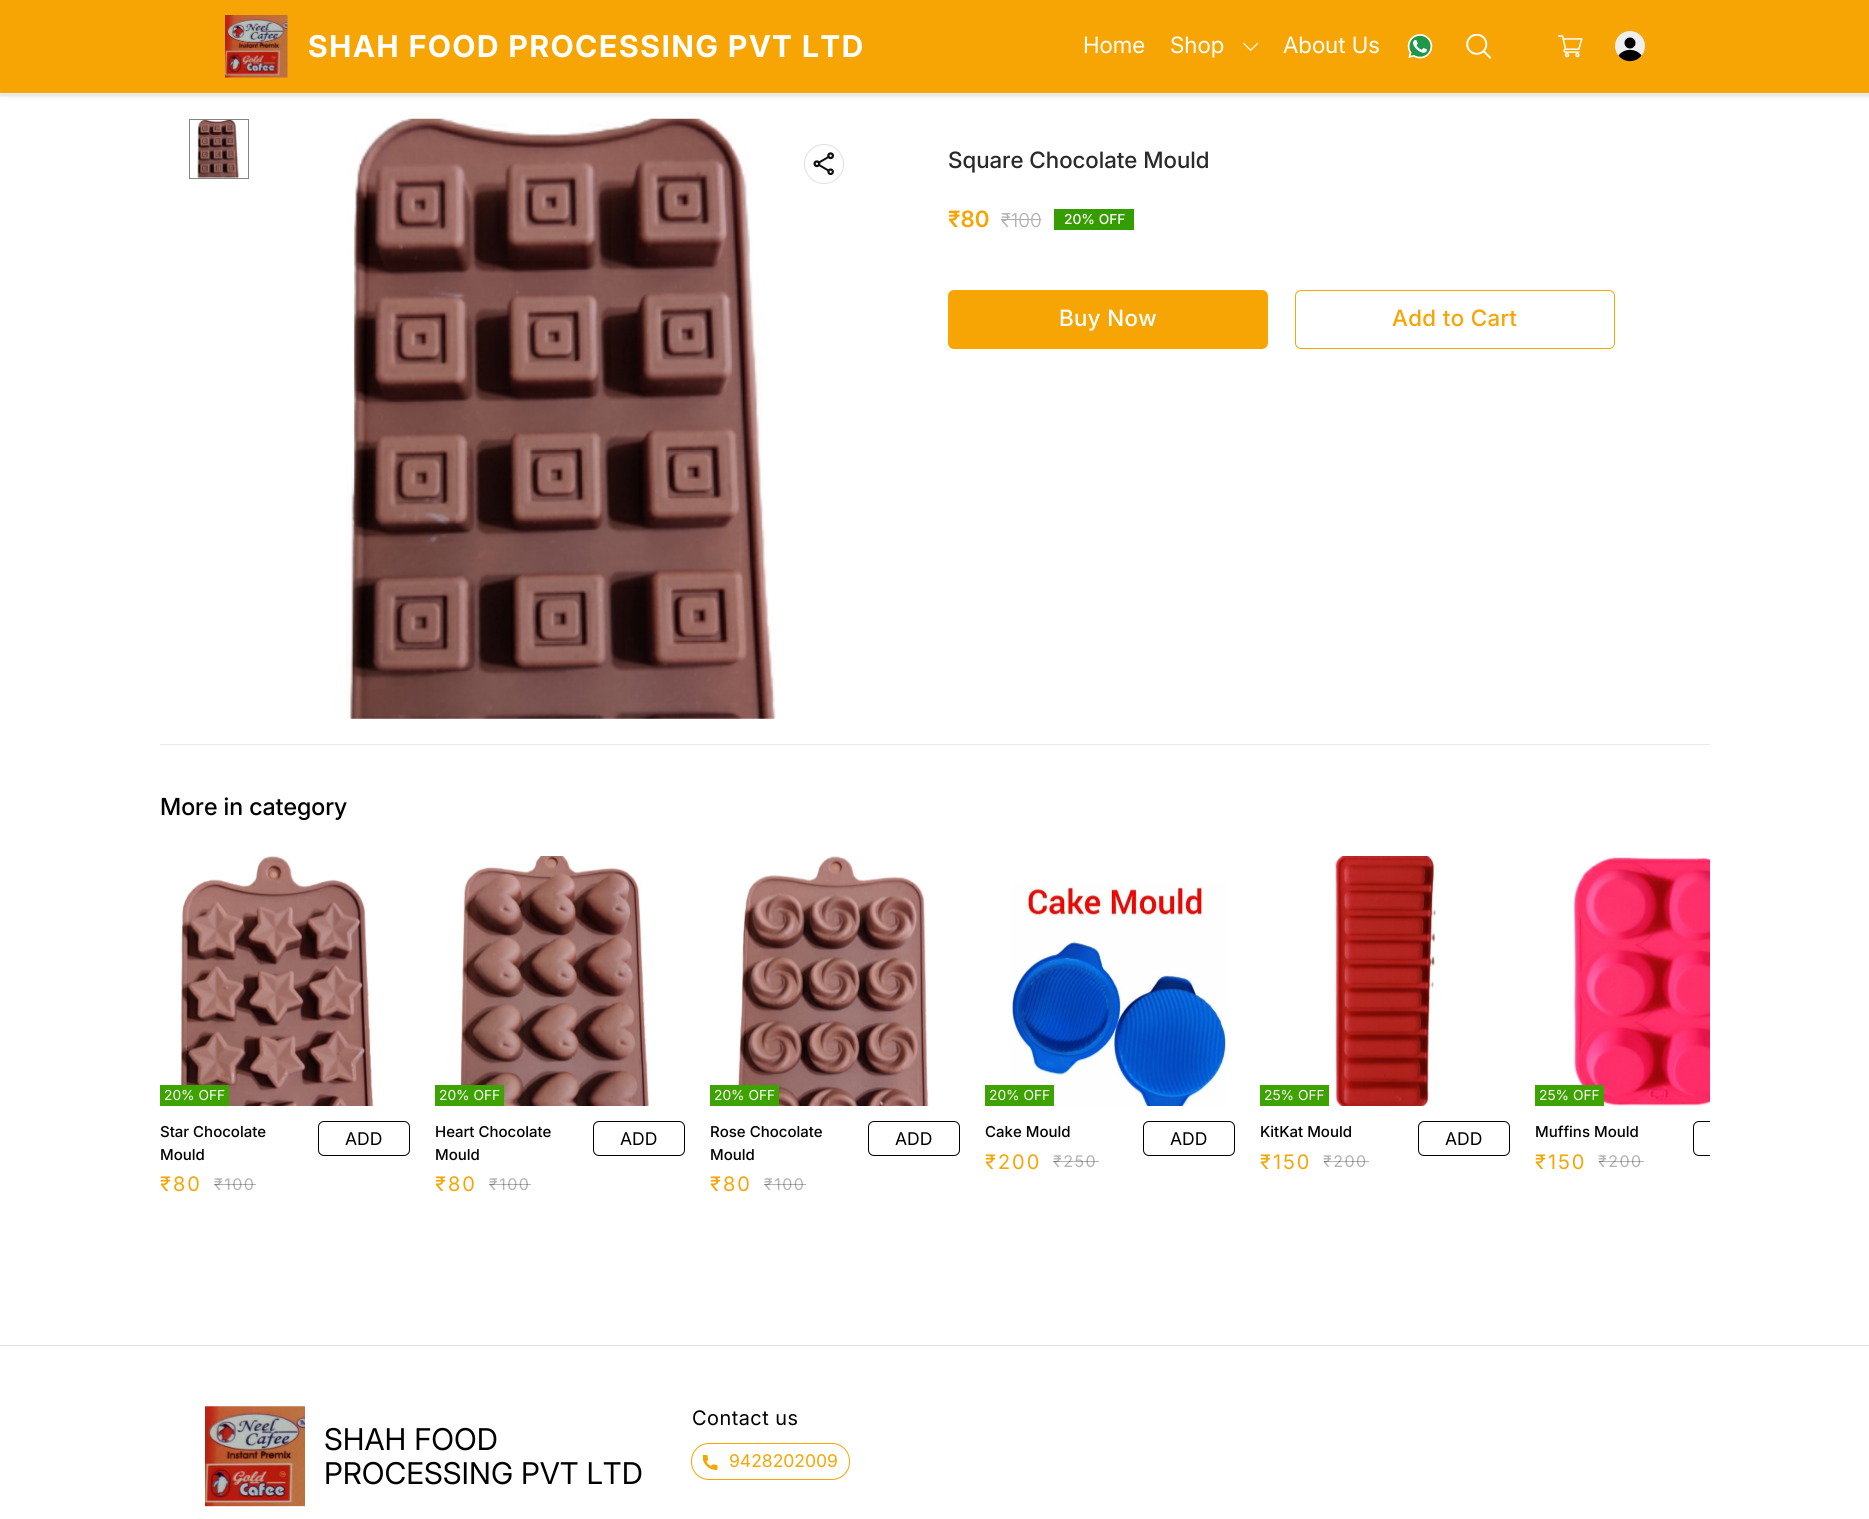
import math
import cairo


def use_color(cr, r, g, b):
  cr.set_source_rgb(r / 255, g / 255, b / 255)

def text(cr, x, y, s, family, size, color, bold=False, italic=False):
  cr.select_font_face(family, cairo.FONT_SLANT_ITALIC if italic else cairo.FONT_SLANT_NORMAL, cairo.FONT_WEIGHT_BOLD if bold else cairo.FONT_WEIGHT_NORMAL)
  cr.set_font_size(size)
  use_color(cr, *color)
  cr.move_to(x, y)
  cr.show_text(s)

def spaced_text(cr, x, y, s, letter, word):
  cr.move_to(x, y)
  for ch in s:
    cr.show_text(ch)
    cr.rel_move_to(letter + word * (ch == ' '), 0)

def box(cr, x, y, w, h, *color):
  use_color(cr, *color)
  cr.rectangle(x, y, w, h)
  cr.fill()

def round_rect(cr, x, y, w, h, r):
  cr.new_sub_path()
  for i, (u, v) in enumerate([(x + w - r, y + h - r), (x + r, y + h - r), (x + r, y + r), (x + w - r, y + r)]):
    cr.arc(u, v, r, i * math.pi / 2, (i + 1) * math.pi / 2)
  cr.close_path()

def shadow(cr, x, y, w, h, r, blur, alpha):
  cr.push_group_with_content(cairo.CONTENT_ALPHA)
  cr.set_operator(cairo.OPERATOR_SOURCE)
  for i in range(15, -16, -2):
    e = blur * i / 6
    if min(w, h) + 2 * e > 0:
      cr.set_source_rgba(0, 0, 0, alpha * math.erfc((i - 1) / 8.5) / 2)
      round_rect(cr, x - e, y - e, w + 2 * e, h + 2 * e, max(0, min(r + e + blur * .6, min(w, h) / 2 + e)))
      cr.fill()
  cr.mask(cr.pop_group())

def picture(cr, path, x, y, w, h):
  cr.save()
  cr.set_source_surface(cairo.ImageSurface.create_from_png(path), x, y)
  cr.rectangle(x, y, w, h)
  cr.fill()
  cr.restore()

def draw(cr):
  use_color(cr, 255, 255, 255)
  cr.paint()
  use_color(cr, 0, 0, 0)
  shadow(cr, 0, 0, 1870, 94, 0, 3, 0.25)
  box(cr, 0, 0, 1869, 93, 246, 165, 5)
  box(cr, 0, 93, 1869, 1, 239, 239, 239)
  picture(cr, "img_01.png", 225, 15, 63, 63)
  picture(cr, "img_02.png", 1243, 42, 15, 9)
  picture(cr, "img_03.png", 1407, 34, 26, 25)
  picture(cr, "img_04.png", 1466, 34, 25, 25)
  picture(cr, "img_05.png", 1558, 35, 25, 23)
  cr.arc(1630, 46, 15, 0, 2 * math.pi)
  cr.fill()
  use_color(cr, 0, 0, 0)
  cr.arc(1630, 43, 5.5, 0, 2 * math.pi)
  cr.fill()
  cr.new_path()
  cr.move_to(1641.5, 55.5)
  cr.curve_to(1636, 48, 1624, 48, 1618.5, 55.5)
  cr.curve_to(1624, 63, 1636, 63, 1641.5, 55.5)
  cr.close_path()
  cr.fill()
  cr.rectangle(189.5, 119.5, 59, 59)
  use_color(cr, 133, 133, 133)
  cr.set_line_width(1)
  cr.stroke()
  picture(cr, "img_06.png", 197, 120, 42, 58)
  picture(cr, "img_07.png", 346, 118, 430, 601)
  cr.arc(824, 164, 19.5, 0, 2 * math.pi)
  use_color(cr, 224, 224, 224)
  cr.stroke()
  picture(cr, "img_08.png", 813, 152, 21, 24)
  box(cr, 1001, 219, 40, 1, 171, 173, 174)
  box(cr, 1054, 209, 80, 21, 54, 157, 0)
  use_color(cr, 246, 165, 5)
  round_rect(cr, 948, 290, 320, 59, 6)
  cr.fill()
  round_rect(cr, 1295.5, 290.5, 319, 58, 5.5)
  cr.stroke()
  box(cr, 160, 744, 1550, 1, 234, 234, 234)
  picture(cr, "img_09.png", 180, 856, 194, 250)
  box(cr, 160, 1085, 69, 21, 62, 162, 0)
  round_rect(cr, 318.5, 1121.5, 91, 34, 5.5)
  use_color(cr, 0, 0, 0)
  cr.stroke()
  picture(cr, "img_10.png", 460, 856, 189, 250)
  box(cr, 435, 1085, 69, 21, 62, 162, 0)
  round_rect(cr, 593.5, 1121.5, 91, 34, 5.5)
  use_color(cr, 0, 0, 0)
  cr.stroke()
  picture(cr, "img_11.png", 736, 856, 193, 250)
  box(cr, 710, 1085, 69, 21, 62, 162, 0)
  round_rect(cr, 868.5, 1121.5, 91, 34, 5.5)
  use_color(cr, 0, 0, 0)
  cr.stroke()
  picture(cr, "img_12.png", 1011, 884, 216, 222)
  box(cr, 985, 1085, 69, 21, 62, 162, 0)
  round_rect(cr, 1143.5, 1121.5, 91, 34, 5.5)
  use_color(cr, 0, 0, 0)
  cr.stroke()
  box(cr, 1260, 1085, 69, 21, 62, 162, 0)
  picture(cr, "img_13.png", 1333, 856, 103, 250)
  round_rect(cr, 1418.5, 1121.5, 91, 34, 5.5)
  use_color(cr, 0, 0, 0)
  cr.stroke()
  picture(cr, "img_14.png", 1573, 857, 137, 249)
  box(cr, 1535, 1085, 69, 21, 62, 162, 0)
  cr.save()
  cr.rectangle(160, 844, 1550, 401)
  cr.clip()
  round_rect(cr, 1693.5, 1121.5, 91, 34, 5.5)
  use_color(cr, 0, 0, 0)
  cr.stroke()
  cr.restore()
  box(cr, 0, 1345, 1869, 1, 226, 226, 226)
  picture(cr, "img_15.png", 205, 1406, 100, 101)
  round_rect(cr, 691.5, 1443.5, 158, 36, 17.5)
  use_color(cr, 246, 165, 5)
  cr.stroke()
  picture(cr, "img_16.png", 703, 1455, 15, 15)
  cr.select_font_face("Inter", cairo.FONT_SLANT_NORMAL, cairo.FONT_WEIGHT_BOLD)
  cr.set_font_size(30)
  use_color(cr, 255, 255, 255)
  spaced_text(cr, 308, 57, "SHAH FOOD PROCESSING PVT LTD", 1.75, 0)
  text(cr, 1083, 53, "Home", "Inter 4", 22.5, (255, 255, 255))
  text(cr, 1170, 53, "Shop", "Inter 4", 22.5, (255, 255, 255))
  text(cr, 1283, 53, "About Us", "Inter 4", 22.5, (255, 255, 255))
  text(cr, 948, 168, "Square Chocolate Mould", "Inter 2 Medium", 22.5, (42, 42, 42))
  text(cr, 948, 227, "₹80", "Inter SemiBold", 22.5, (246, 165, 5))
  text(cr, 1001, 227, "₹100", "Inter Light", 19, (171, 173, 174))
  text(cr, 1064, 224, "20% OFF", "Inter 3 Medium", 13.75, (255, 255, 255))
  cr.select_font_face("Inter 2 Medium")
  cr.set_font_size(22.5)
  spaced_text(cr, 1059, 326, "Buy Now", 0.4, 0)
  use_color(cr, 246, 165, 5)
  spaced_text(cr, 1392, 326, "Add to Cart", 0.4, 0)
  text(cr, 160, 815, "More in category", "Inter Medium", 23.5, (0, 0, 0))
  text(cr, 164, 1100, "20% OFF", "Inter 2", 13.75, (255, 255, 255))
  text(cr, 160, 1137, "Star Chocolate", "Inter 3 Medium", 15, (0, 0, 0))
  text(cr, 160, 1160, "Mould", "Inter 3 Medium", 15, (0, 0, 0))
  cr.select_font_face("Inter 2")
  cr.set_font_size(20)
  use_color(cr, 246, 165, 5)
  spaced_text(cr, 160, 1191, "₹", 2, 0)
  cr.select_font_face("Inter")
  spaced_text(cr, 173, 1191, "80", 2, 0)
  cr.select_font_face("Inter 2")
  cr.set_font_size(16)
  use_color(cr, 179, 179, 179)
  spaced_text(cr, 214, 1190, "₹100", 1.5, 0)
  cr.set_source_rgba(0, 0, 0, 0.3)
  cr.rectangle(214, 1184, 10, 1)
  cr.fill()
  cr.rectangle(224, 1184, 32, 1)
  cr.fill()
  text(cr, 345, 1145, "ADD", "Inter 2", 17.5, (0, 0, 0))
  text(cr, 439, 1100, "20% OFF", "Inter 2", 13.75, (255, 255, 255))
  text(cr, 435, 1137, "Heart Chocolate", "Inter 3 Medium", 15, (0, 0, 0))
  text(cr, 435, 1160, "Mould", "Inter 3 Medium", 15, (0, 0, 0))
  cr.select_font_face("Inter 2")
  cr.set_font_size(20)
  use_color(cr, 246, 165, 5)
  spaced_text(cr, 435, 1191, "₹", 2, 0)
  cr.select_font_face("Inter")
  spaced_text(cr, 448, 1191, "80", 2, 0)
  cr.select_font_face("Inter 2")
  cr.set_font_size(16)
  use_color(cr, 179, 179, 179)
  spaced_text(cr, 489, 1190, "₹100", 1.5, 0)
  cr.set_source_rgba(0, 0, 0, 0.3)
  cr.rectangle(489, 1184, 10, 1)
  cr.fill()
  cr.rectangle(499, 1184, 32, 1)
  cr.fill()
  text(cr, 620, 1145, "ADD", "Inter 2", 17.5, (0, 0, 0))
  text(cr, 714, 1100, "20% OFF", "Inter 2", 13.75, (255, 255, 255))
  text(cr, 710, 1137, "Rose Chocolate", "Inter 3 Medium", 15, (0, 0, 0))
  text(cr, 710, 1160, "Mould", "Inter 3 Medium", 15, (0, 0, 0))
  cr.select_font_face("Inter 2")
  cr.set_font_size(20)
  use_color(cr, 246, 165, 5)
  spaced_text(cr, 710, 1191, "₹", 2, 0)
  cr.select_font_face("Inter")
  spaced_text(cr, 723, 1191, "80", 2, 0)
  cr.select_font_face("Inter 2")
  cr.set_font_size(16)
  use_color(cr, 179, 179, 179)
  spaced_text(cr, 764, 1190, "₹100", 1.5, 0)
  cr.set_source_rgba(0, 0, 0, 0.3)
  cr.rectangle(764, 1184, 10, 1)
  cr.fill()
  cr.rectangle(774, 1184, 32, 1)
  cr.fill()
  text(cr, 895, 1145, "ADD", "Inter 2", 17.5, (0, 0, 0))
  text(cr, 989, 1100, "20% OFF", "Inter 2", 13.75, (255, 255, 255))
  text(cr, 985, 1137, "Cake Mould", "Inter 3 Medium", 15, (0, 0, 0))
  cr.select_font_face("Inter 2")
  cr.set_font_size(20)
  use_color(cr, 246, 165, 5)
  spaced_text(cr, 985, 1169, "₹", 2, 0)
  cr.select_font_face("Inter")
  spaced_text(cr, 998, 1169, "200", 2, 0)
  cr.select_font_face("Inter 2")
  cr.set_font_size(16)
  use_color(cr, 179, 179, 179)
  spaced_text(cr, 1053, 1167, "₹250", 1.5, 0)
  cr.set_source_rgba(0, 0, 0, 0.3)
  cr.rectangle(1053, 1161, 11, 1)
  cr.fill()
  cr.rectangle(1064, 1161, 35, 1)
  cr.fill()
  text(cr, 1170, 1145, "ADD", "Inter 2", 17.5, (0, 0, 0))
  text(cr, 1264, 1100, "25% OFF", "Inter 2", 13.75, (255, 255, 255))
  text(cr, 1260, 1137, "KitKat Mould", "Inter 3 Medium", 15, (0, 0, 0))
  cr.select_font_face("Inter 2")
  cr.set_font_size(20)
  use_color(cr, 246, 165, 5)
  spaced_text(cr, 1260, 1169, "₹", 2, 0)
  cr.select_font_face("Inter")
  spaced_text(cr, 1273, 1169, "150", 2, 0)
  cr.select_font_face("Inter 2")
  cr.set_font_size(16)
  use_color(cr, 179, 179, 179)
  spaced_text(cr, 1323, 1167, "₹200", 1.5, 0)
  cr.set_source_rgba(0, 0, 0, 0.3)
  cr.rectangle(1324, 1161, 10, 1)
  cr.fill()
  cr.rectangle(1334, 1161, 35, 1)
  cr.fill()
  text(cr, 1445, 1145, "ADD", "Inter 2", 17.5, (0, 0, 0))
  text(cr, 1539, 1100, "25% OFF", "Inter 2", 13.75, (255, 255, 255))
  text(cr, 1535, 1137, "Muffins Mould", "Inter 3 Medium", 15, (0, 0, 0))
  cr.select_font_face("Inter 2")
  cr.set_font_size(20)
  use_color(cr, 246, 165, 5)
  spaced_text(cr, 1535, 1169, "₹", 2, 0)
  cr.select_font_face("Inter")
  spaced_text(cr, 1548, 1169, "150", 2, 0)
  cr.select_font_face("Inter 2")
  cr.set_font_size(16)
  use_color(cr, 179, 179, 179)
  spaced_text(cr, 1598, 1167, "₹200", 1.5, 0)
  cr.set_source_rgba(0, 0, 0, 0.3)
  cr.rectangle(1599, 1161, 10, 1)
  cr.fill()
  cr.rectangle(1609, 1161, 35, 1)
  cr.fill()
  text(cr, 324, 1450, "SHAH FOOD", "Inter 3", 30, (0, 0, 0))
  text(cr, 324, 1484, "PROCESSING PVT LTD", "Inter 3", 30, (0, 0, 0))
  cr.select_font_face("Inter")
  cr.set_font_size(20)
  spaced_text(cr, 692, 1425, "Contact us", 0.5, 0)
  text(cr, 729, 1467, "9428202009", "Inter 2", 17.5, (246, 165, 5))


surface = cairo.ImageSurface(cairo.FORMAT_RGB24, 1869, 1519)
cr = cairo.Context(surface)
options = cairo.FontOptions()
options.set_hint_metrics(cairo.HINT_METRICS_OFF)
options.set_hint_style(cairo.HINT_STYLE_NONE)
cr.set_font_options(options)
cr.set_miter_limit(4)
draw(cr)
surface.write_to_png("out.png")
